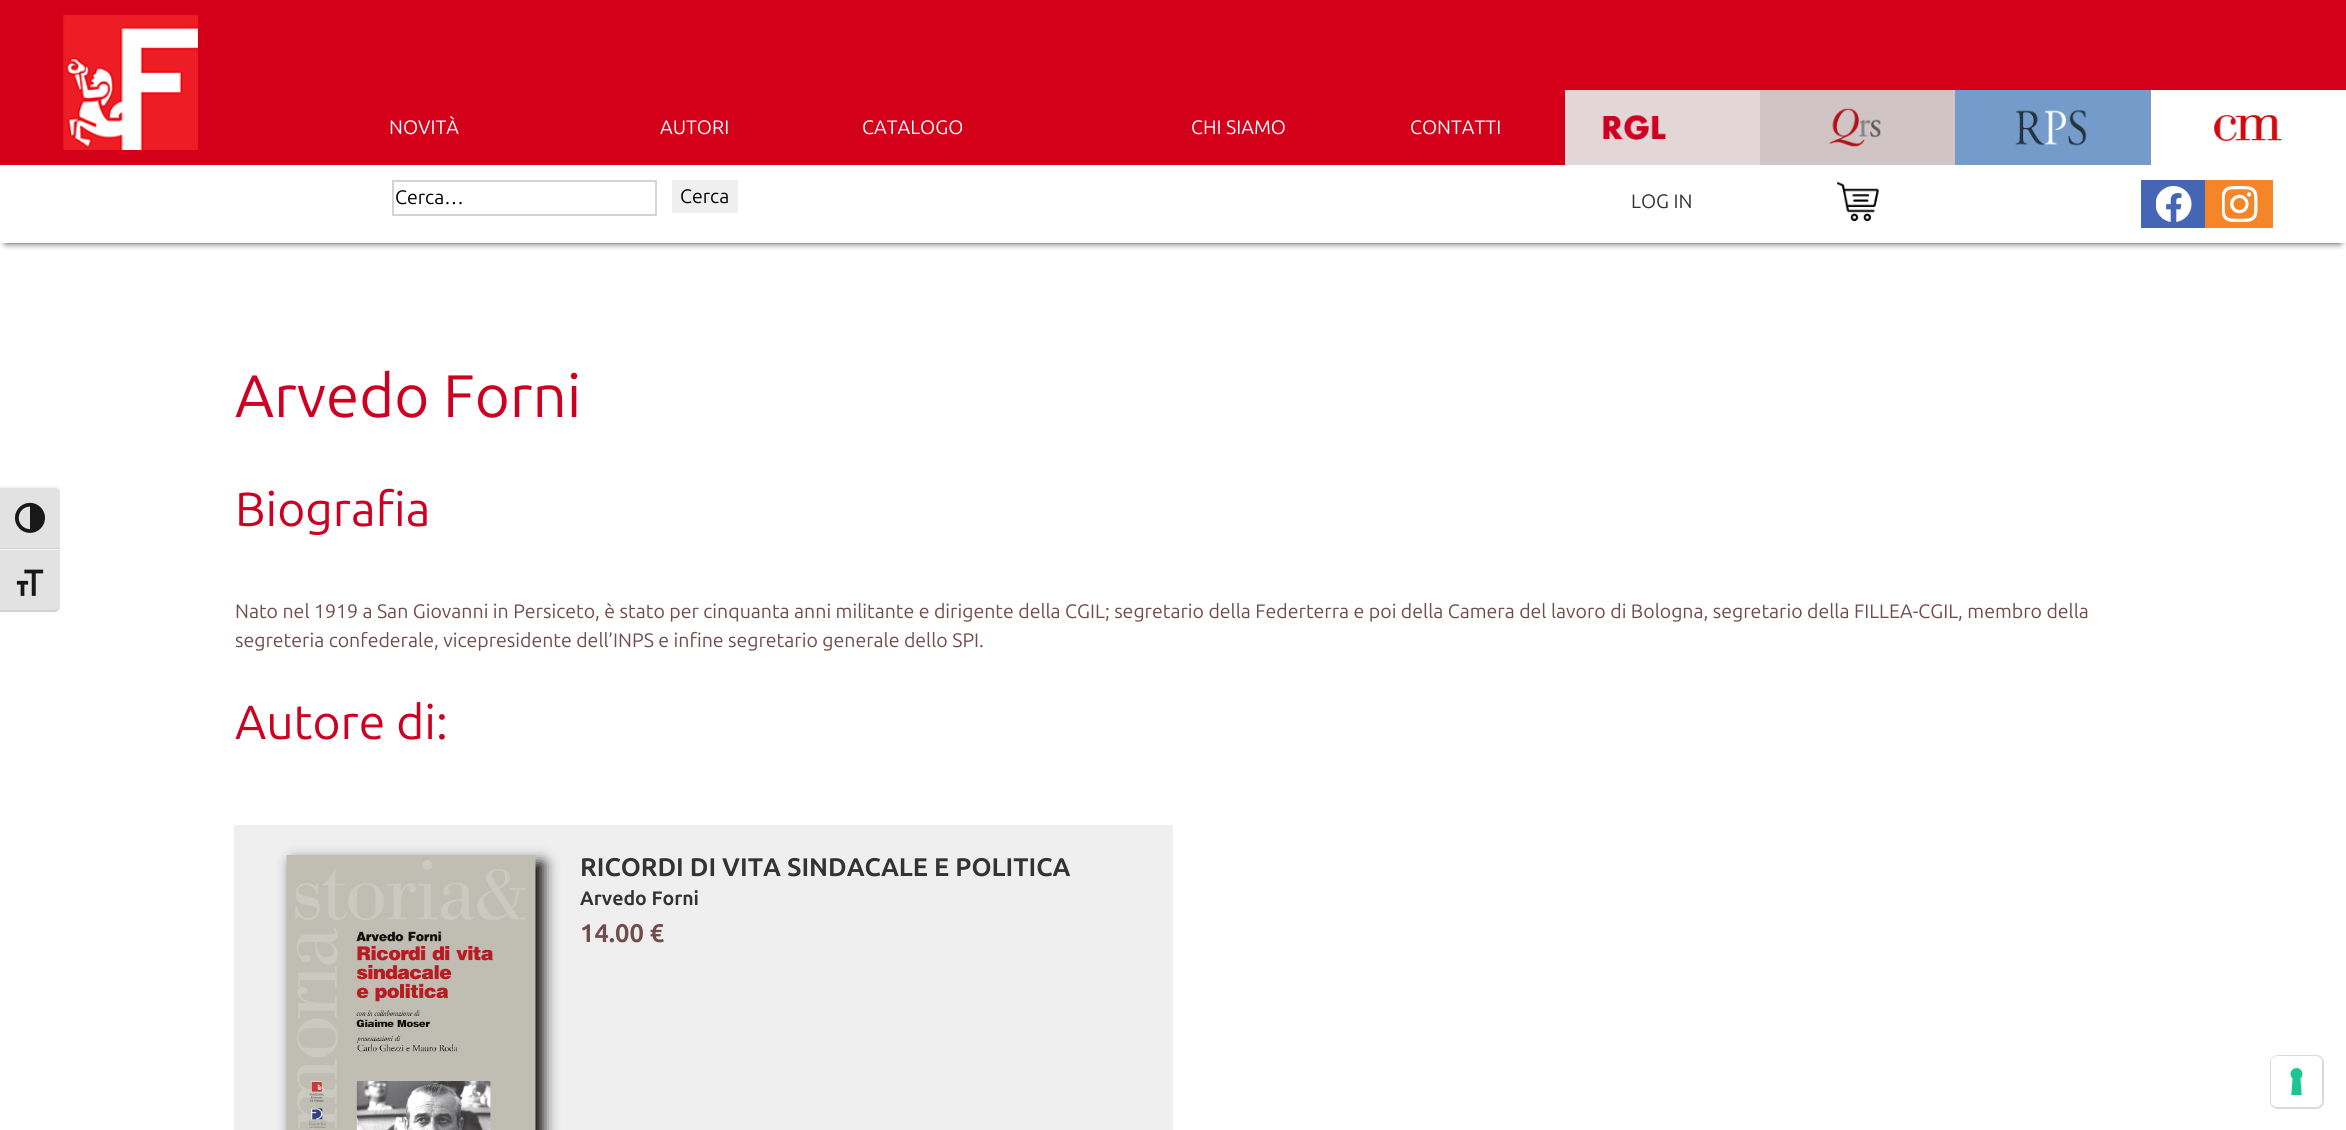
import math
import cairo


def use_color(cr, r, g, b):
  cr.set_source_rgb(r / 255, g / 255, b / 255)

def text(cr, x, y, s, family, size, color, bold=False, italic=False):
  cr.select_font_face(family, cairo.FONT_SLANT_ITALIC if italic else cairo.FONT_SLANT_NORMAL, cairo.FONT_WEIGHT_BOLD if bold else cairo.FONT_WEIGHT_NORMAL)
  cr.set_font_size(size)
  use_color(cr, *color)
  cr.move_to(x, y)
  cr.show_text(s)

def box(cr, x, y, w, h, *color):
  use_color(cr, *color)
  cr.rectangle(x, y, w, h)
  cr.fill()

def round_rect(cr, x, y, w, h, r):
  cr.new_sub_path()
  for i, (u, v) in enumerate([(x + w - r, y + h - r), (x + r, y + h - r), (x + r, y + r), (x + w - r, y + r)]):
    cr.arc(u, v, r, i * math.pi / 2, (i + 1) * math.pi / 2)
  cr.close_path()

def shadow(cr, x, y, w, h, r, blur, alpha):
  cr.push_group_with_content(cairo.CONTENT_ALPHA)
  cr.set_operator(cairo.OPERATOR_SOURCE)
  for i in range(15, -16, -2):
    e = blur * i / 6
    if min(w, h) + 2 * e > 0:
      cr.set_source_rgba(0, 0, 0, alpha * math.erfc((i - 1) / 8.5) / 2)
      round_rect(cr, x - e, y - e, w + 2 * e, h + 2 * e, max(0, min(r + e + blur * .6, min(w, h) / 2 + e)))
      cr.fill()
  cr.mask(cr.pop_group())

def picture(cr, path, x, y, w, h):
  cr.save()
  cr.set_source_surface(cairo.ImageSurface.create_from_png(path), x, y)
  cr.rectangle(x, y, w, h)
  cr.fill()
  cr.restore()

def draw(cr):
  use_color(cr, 255, 255, 255)
  cr.paint()
  use_color(cr, 226, 226, 226)
  cr.new_path()
  cr.move_to(0, 486)
  cr.line_to(54, 486)
  cr.curve_to(57.5, 486, 60, 488.5, 60, 492)
  cr.line_to(60, 549)
  cr.line_to(0, 549)
  cr.close_path()
  cr.fill()
  use_color(cr, 245, 245, 245)
  cr.new_path()
  cr.move_to(0, 486)
  cr.line_to(0, 488)
  cr.line_to(54, 488)
  cr.curve_to(57, 488, 60, 490, 60, 492)
  cr.curve_to(60, 489, 57, 486, 54, 486)
  cr.close_path()
  cr.fill()
  box(cr, 0, 548, 60, 1, 210, 210, 210)
  picture(cr, "img_01.png", 15, 502, 30, 31)
  use_color(cr, 226, 226, 226)
  cr.new_path()
  cr.move_to(0, 549)
  cr.line_to(60, 549)
  cr.line_to(60, 606)
  cr.curve_to(60, 609.5, 57.5, 612, 54, 612)
  cr.line_to(0, 612)
  cr.close_path()
  cr.fill()
  box(cr, 0, 549, 60, 1, 245, 245, 245)
  use_color(cr, 210, 210, 210)
  cr.new_path()
  cr.move_to(0, 610)
  cr.line_to(0, 612)
  cr.line_to(54, 612)
  cr.curve_to(57, 612, 60, 609, 60, 606)
  cr.curve_to(60, 608, 57, 610, 54, 610)
  cr.close_path()
  cr.fill()
  picture(cr, "img_02.png", 16, 569, 28, 27)
  box(cr, 0, 0, 2346, 165, 212, 0, 26)
  picture(cr, "img_03.png", 63, 15, 135, 135)
  box(cr, 1565, 90, 195, 75, 226, 214, 214)
  picture(cr, "img_04.png", 1602, 115, 64, 25)
  box(cr, 1760, 90, 195, 75, 208, 197, 196)
  picture(cr, "img_05.png", 1829, 108, 52, 39)
  box(cr, 1955, 90, 196, 75, 116, 155, 201)
  picture(cr, "img_06.png", 2015, 109, 72, 37)
  box(cr, 2151, 90, 195, 75, 255, 255, 255)
  picture(cr, "img_07.png", 2214, 115, 68, 26)
  cr.save()
  cr.rectangle(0, 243, 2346, 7)
  cr.clip()
  use_color(cr, 0, 0, 0)
  shadow(cr, 6, 176, 2334, 66, 0, 4, 1)
  cr.restore()
  cr.rectangle(393, 181, 263, 34)
  use_color(cr, 211, 211, 211)
  cr.stroke()
  box(cr, 672, 180, 66, 33, 239, 239, 239)
  picture(cr, "img_08.png", 1836, 181, 43, 41)
  box(cr, 2141, 180, 64, 48, 69, 102, 181)
  picture(cr, "img_09.png", 2156, 186, 36, 36)
  box(cr, 2205, 180, 68, 48, 245, 133, 41)
  picture(cr, "img_10.png", 2222, 186, 36, 36)
  box(cr, 234, 825, 939, 305, 239, 239, 239)
  use_color(cr, 0, 0, 0)
  shadow(cr, 294, 863, 249, 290, 0, 7.5, 1)
  picture(cr, "img_11.png", 286, 855, 250, 275)
  round_rect(cr, 2271, 1056, 52, 52, 7)
  use_color(cr, 217, 217, 217)
  cr.stroke()
  use_color(cr, 255, 255, 255)
  round_rect(cr, 2271, 1056, 51, 51, 6)
  cr.fill()
  picture(cr, "img_12.png", 2290, 1068, 13, 27)
  text(cr, 389, 134, "NOVITÀ", "Ubuntu", 19.5, (255, 255, 255))
  text(cr, 660, 134, "AUTORI", "Ubuntu", 19.5, (255, 255, 255))
  text(cr, 862, 134, "CATALOGO", "Ubuntu", 19.5, (255, 255, 255))
  text(cr, 1191, 134, "CHI SIAMO", "Ubuntu", 19.5, (255, 255, 255))
  text(cr, 1410, 134, "CONTATTI", "Ubuntu", 19.5, (255, 255, 255))
  text(cr, 395, 204, "Cerca…", "Ubuntu", 19.5, (0, 0, 0))
  text(cr, 680, 203, "Cerca", "Ubuntu", 19.5, (0, 0, 0))
  text(cr, 1631, 208, "LOG IN", "Ubuntu", 19.5, (51, 51, 51))
  text(cr, 235, 417, "Arvedo Forni", "Ubuntu", 60, (206, 0, 33))
  text(cr, 235, 526, "Biografia", "Ubuntu", 48, (206, 0, 33))
  text(cr, 235, 618, "Nato nel 1919 a San Giovanni in Persiceto, è stato per cinquanta anni militante e dirigente della CGIL; segretario della Federterra e poi della Camera del lavoro di Bologna, segretario della FILLEA-CGIL, membro della", "Ubuntu", 19.5, (114, 75, 75))
  text(cr, 235, 647, "segreteria confederale, vicepresidente dell’INPS e infine segretario generale dello SPI.", "Ubuntu", 19.5, (114, 75, 75))
  text(cr, 235, 739, "Autore di:", "Ubuntu", 48, (206, 0, 33))
  text(cr, 580, 876, "RICORDI DI VITA SINDACALE E POLITICA", "Ubuntu", 25.5, (51, 51, 51), bold=True)
  text(cr, 580, 905, "Arvedo Forni", "Ubuntu", 19.5, (51, 51, 51), bold=True)
  text(cr, 580, 942, "14.00 €", "Ubuntu", 25.5, (114, 75, 75), bold=True)


surface = cairo.ImageSurface(cairo.FORMAT_RGB24, 2346, 1130)
cr = cairo.Context(surface)
options = cairo.FontOptions()
options.set_hint_metrics(cairo.HINT_METRICS_OFF)
options.set_hint_style(cairo.HINT_STYLE_NONE)
cr.set_font_options(options)
cr.set_miter_limit(4)
draw(cr)
surface.write_to_png("out.png")
